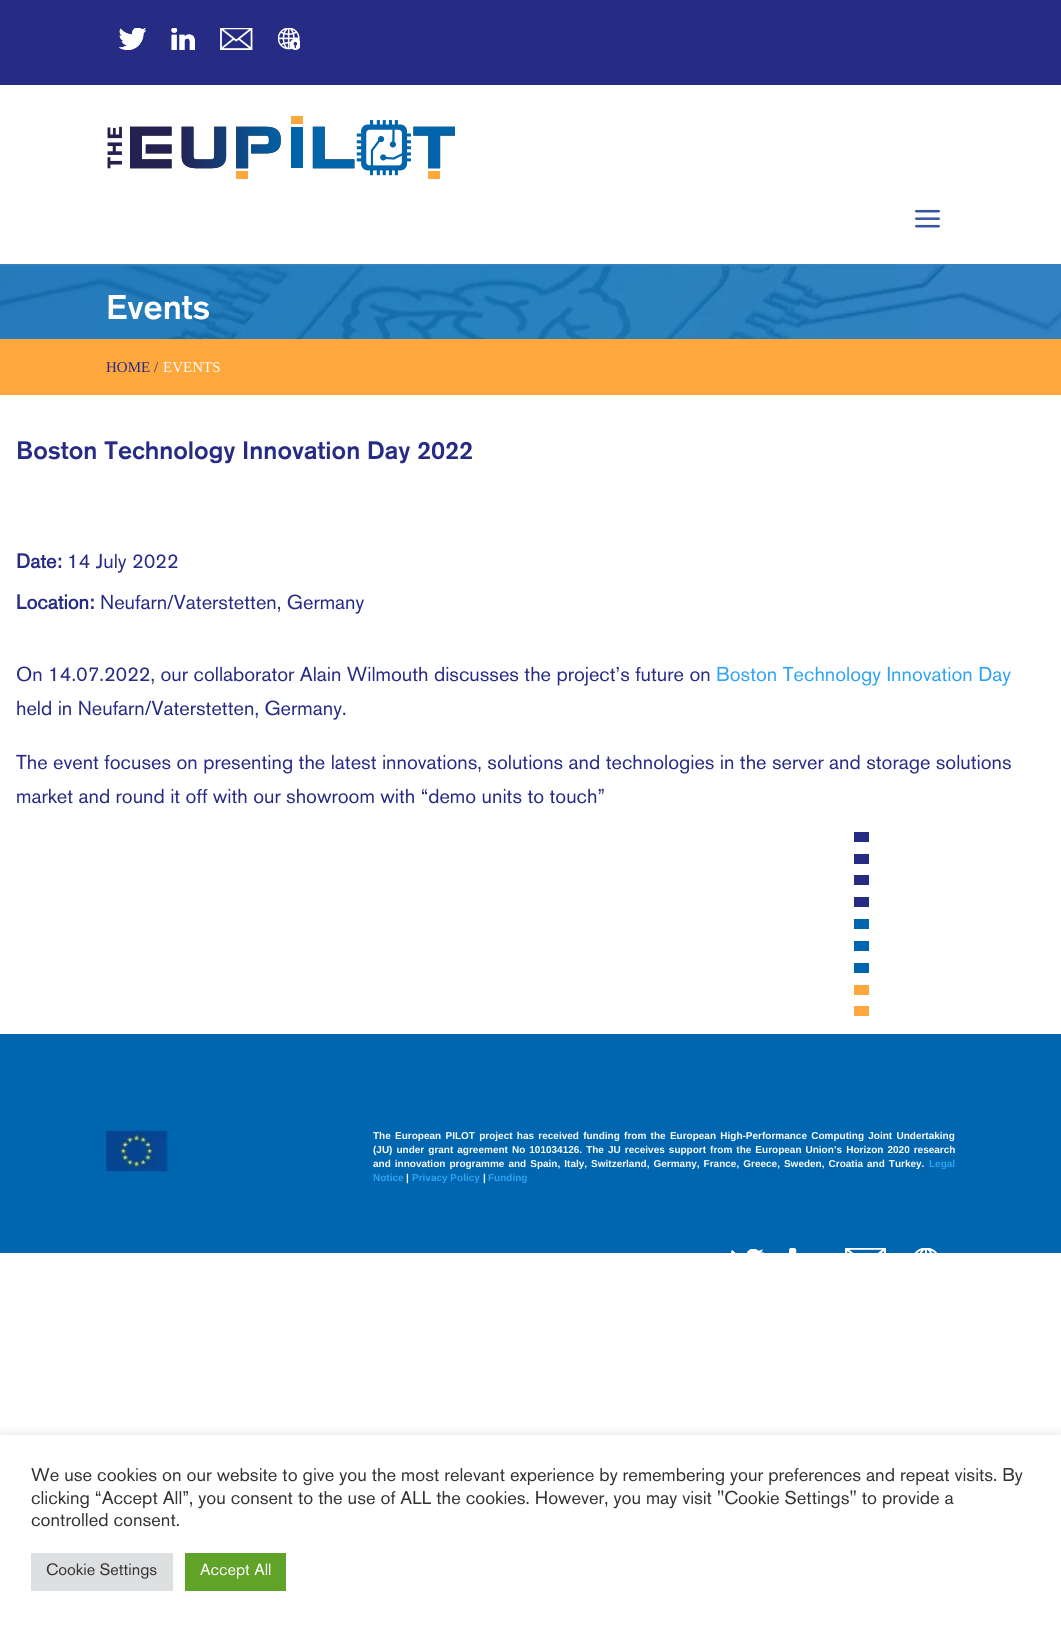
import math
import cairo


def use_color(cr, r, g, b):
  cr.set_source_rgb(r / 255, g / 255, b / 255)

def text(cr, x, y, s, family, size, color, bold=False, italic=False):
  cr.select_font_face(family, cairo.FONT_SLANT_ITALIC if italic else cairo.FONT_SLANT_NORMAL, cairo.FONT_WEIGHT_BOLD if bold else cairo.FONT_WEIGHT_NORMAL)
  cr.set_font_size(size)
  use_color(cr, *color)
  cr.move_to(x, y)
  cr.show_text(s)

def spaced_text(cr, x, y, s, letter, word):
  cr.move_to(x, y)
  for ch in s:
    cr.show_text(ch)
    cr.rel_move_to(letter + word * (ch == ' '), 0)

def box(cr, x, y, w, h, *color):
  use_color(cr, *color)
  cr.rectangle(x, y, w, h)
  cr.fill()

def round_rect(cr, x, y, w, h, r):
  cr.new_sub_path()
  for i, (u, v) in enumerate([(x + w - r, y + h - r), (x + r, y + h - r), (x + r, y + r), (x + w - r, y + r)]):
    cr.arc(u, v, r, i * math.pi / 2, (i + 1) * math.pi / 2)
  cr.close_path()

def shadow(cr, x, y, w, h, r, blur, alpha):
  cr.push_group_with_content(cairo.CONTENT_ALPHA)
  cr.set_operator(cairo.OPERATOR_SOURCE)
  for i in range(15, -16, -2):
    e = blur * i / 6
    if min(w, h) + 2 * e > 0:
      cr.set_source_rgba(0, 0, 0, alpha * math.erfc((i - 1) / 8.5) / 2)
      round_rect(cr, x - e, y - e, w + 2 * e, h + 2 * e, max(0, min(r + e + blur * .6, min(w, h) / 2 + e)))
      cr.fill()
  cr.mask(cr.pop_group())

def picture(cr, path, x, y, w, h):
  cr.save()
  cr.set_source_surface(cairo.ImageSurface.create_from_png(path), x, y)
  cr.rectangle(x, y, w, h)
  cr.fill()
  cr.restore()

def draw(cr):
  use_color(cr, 255, 255, 255)
  cr.paint()
  box(cr, 0, 0, 1061, 85, 38, 43, 131)
  picture(cr, "img_01.png", 119, 28, 27, 22)
  picture(cr, "img_02.png", 171, 28, 24, 22)
  picture(cr, "img_03.png", 220, 28, 33, 22)
  picture(cr, "img_04.png", 278, 28, 22, 22)
  picture(cr, "img_05.png", 107, 116, 348, 63)
  picture(cr, "img_06.png", 915, 209, 25, 19)
  picture(cr, "img_07.png", 0, 264, 1061, 75)
  box(cr, 0, 339, 1061, 56, 253, 167, 60)
  box(cr, 854, 832, 15, 10, 38, 43, 131)
  box(cr, 854, 854, 15, 10, 38, 43, 131)
  box(cr, 854, 875, 15, 10, 38, 43, 131)
  box(cr, 854, 897, 15, 10, 38, 43, 131)
  box(cr, 854, 919, 15, 10, 0, 102, 175)
  box(cr, 854, 941, 15, 10, 0, 102, 175)
  box(cr, 854, 963, 15, 10, 0, 102, 175)
  box(cr, 854, 985, 15, 10, 253, 167, 60)
  box(cr, 854, 1006, 15, 10, 253, 167, 60)
  box(cr, 0, 1034, 1061, 219, 0, 102, 175)
  picture(cr, "img_08.png", 106, 1130, 62, 42)
  picture(cr, "img_09.png", 731, 1249, 33, 4)
  picture(cr, "img_10.png", 789, 1248, 8, 5)
  picture(cr, "img_11.png", 845, 1248, 41, 5)
  picture(cr, "img_12.png", 914, 1248, 24, 5)
  cr.save()
  cr.rectangle(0, 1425, 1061, 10)
  cr.clip()
  use_color(cr, 172, 171, 171)
  shadow(cr, 0, 1434, 1061, 194, 0, 6, 0.3)
  cr.restore()
  box(cr, 31, 1553, 142, 38, 222, 223, 224)
  box(cr, 185, 1553, 101, 38, 97, 162, 41)
  text(cr, 106, 319, "Events", "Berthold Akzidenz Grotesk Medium", 34, (255, 255, 255))
  text(cr, 106, 372, "HOME /", "Liberation Serif", 15, (38, 43, 131))
  text(cr, 163, 372, "EVENTS", "Liberation Serif", 15, (255, 255, 255))
  text(cr, 16, 459, "Boston Technology Innovation Day 2022", "Berthold Akzidenz Grotesk Medium", 25, (38, 43, 131))
  text(cr, 16, 568, "Date:", "Berthold Akzidenz Grotesk", 20, (38, 43, 131), bold=True)
  text(cr, 67, 568, "14 July 2022", "Berthold Akzidenz Grotesk", 20, (38, 43, 131))
  text(cr, 16, 609, "Location:", "Berthold Akzidenz Grotesk", 20, (38, 43, 131), bold=True)
  text(cr, 100, 609, "Neufarn/Vaterstetten, Germany", "Berthold Akzidenz Grotesk", 20, (38, 43, 131))
  text(cr, 16, 681, "On 14.07.2022, our collaborator Alain Wilmouth discusses the project’s future on", "Berthold Akzidenz Grotesk", 20, (38, 43, 131))
  text(cr, 716, 681, "Boston Technology Innovation Day", "Berthold Akzidenz Grotesk", 20, (46, 163, 242))
  text(cr, 16, 715, "held in Neufarn/Vaterstetten, Germany.", "Berthold Akzidenz Grotesk", 20, (38, 43, 131))
  text(cr, 16, 769, "The event focuses on presenting the latest innovations, solutions and technologies in the server and storage solutions", "Berthold Akzidenz Grotesk", 20, (38, 43, 131))
  text(cr, 16, 803, "market and round it off with our showroom with “demo units to touch”", "Berthold Akzidenz Grotesk", 20, (38, 43, 131))
  cr.select_font_face("Liberation Sans", cairo.FONT_SLANT_NORMAL, cairo.FONT_WEIGHT_BOLD)
  cr.set_font_size(10)
  use_color(cr, 255, 255, 255)
  spaced_text(cr, 373, 1139, "The European PILOT project has received funding from the European High-Performance Computing Joint Undertaking", 0, 1.5)
  spaced_text(cr, 373, 1153, "(JU) under grant agreement No 101034126. The JU receives support from the European Union’s Horizon 2020 research", 0, 1.25)
  spaced_text(cr, 373, 1167, "and innovation programme and Spain, Italy, Switzerland, Germany, France, Greece, Sweden, Croatia and Turkey.", 0, 1.25)
  text(cr, 929, 1167, "Legal", "Liberation Sans", 10, (46, 163, 242), bold=True)
  text(cr, 373, 1181, "Notice", "Liberation Sans", 10, (46, 163, 242), bold=True)
  text(cr, 406, 1181, "|", "Liberation Sans", 10, (255, 255, 255), bold=True)
  text(cr, 412, 1181, "Privacy Policy", "Liberation Sans", 10, (46, 163, 242), bold=True)
  text(cr, 483, 1181, "|", "Liberation Sans", 10, (255, 255, 255), bold=True)
  text(cr, 488, 1181, "Funding", "Liberation Sans", 10, (46, 163, 242), bold=True)
  text(cr, 31, 1481, "We use cookies on our website to give you the most relevant experience by remembering your preferences and repeat visits. By", "Berthold Akzidenz Grotesk", 18.33, (51, 51, 51))
  text(cr, 31, 1504, "clicking “Accept All”, you consent to the use of ALL the cookies. However, you may visit \"Cookie Settings\" to provide a", "Berthold Akzidenz Grotesk", 18.33, (51, 51, 51))
  text(cr, 31, 1526, "controlled consent.", "Berthold Akzidenz Grotesk", 18.33, (51, 51, 51))
  text(cr, 46, 1575, "Cookie Settings", "Berthold Akzidenz Grotesk", 16.25, (51, 51, 51))
  text(cr, 200, 1575, "Accept All", "Berthold Akzidenz Grotesk", 16.25, (255, 255, 255))


surface = cairo.ImageSurface(cairo.FORMAT_RGB24, 1061, 1628)
cr = cairo.Context(surface)
options = cairo.FontOptions()
options.set_hint_metrics(cairo.HINT_METRICS_OFF)
options.set_hint_style(cairo.HINT_STYLE_NONE)
cr.set_font_options(options)
cr.set_miter_limit(4)
draw(cr)
surface.write_to_png("out.png")
